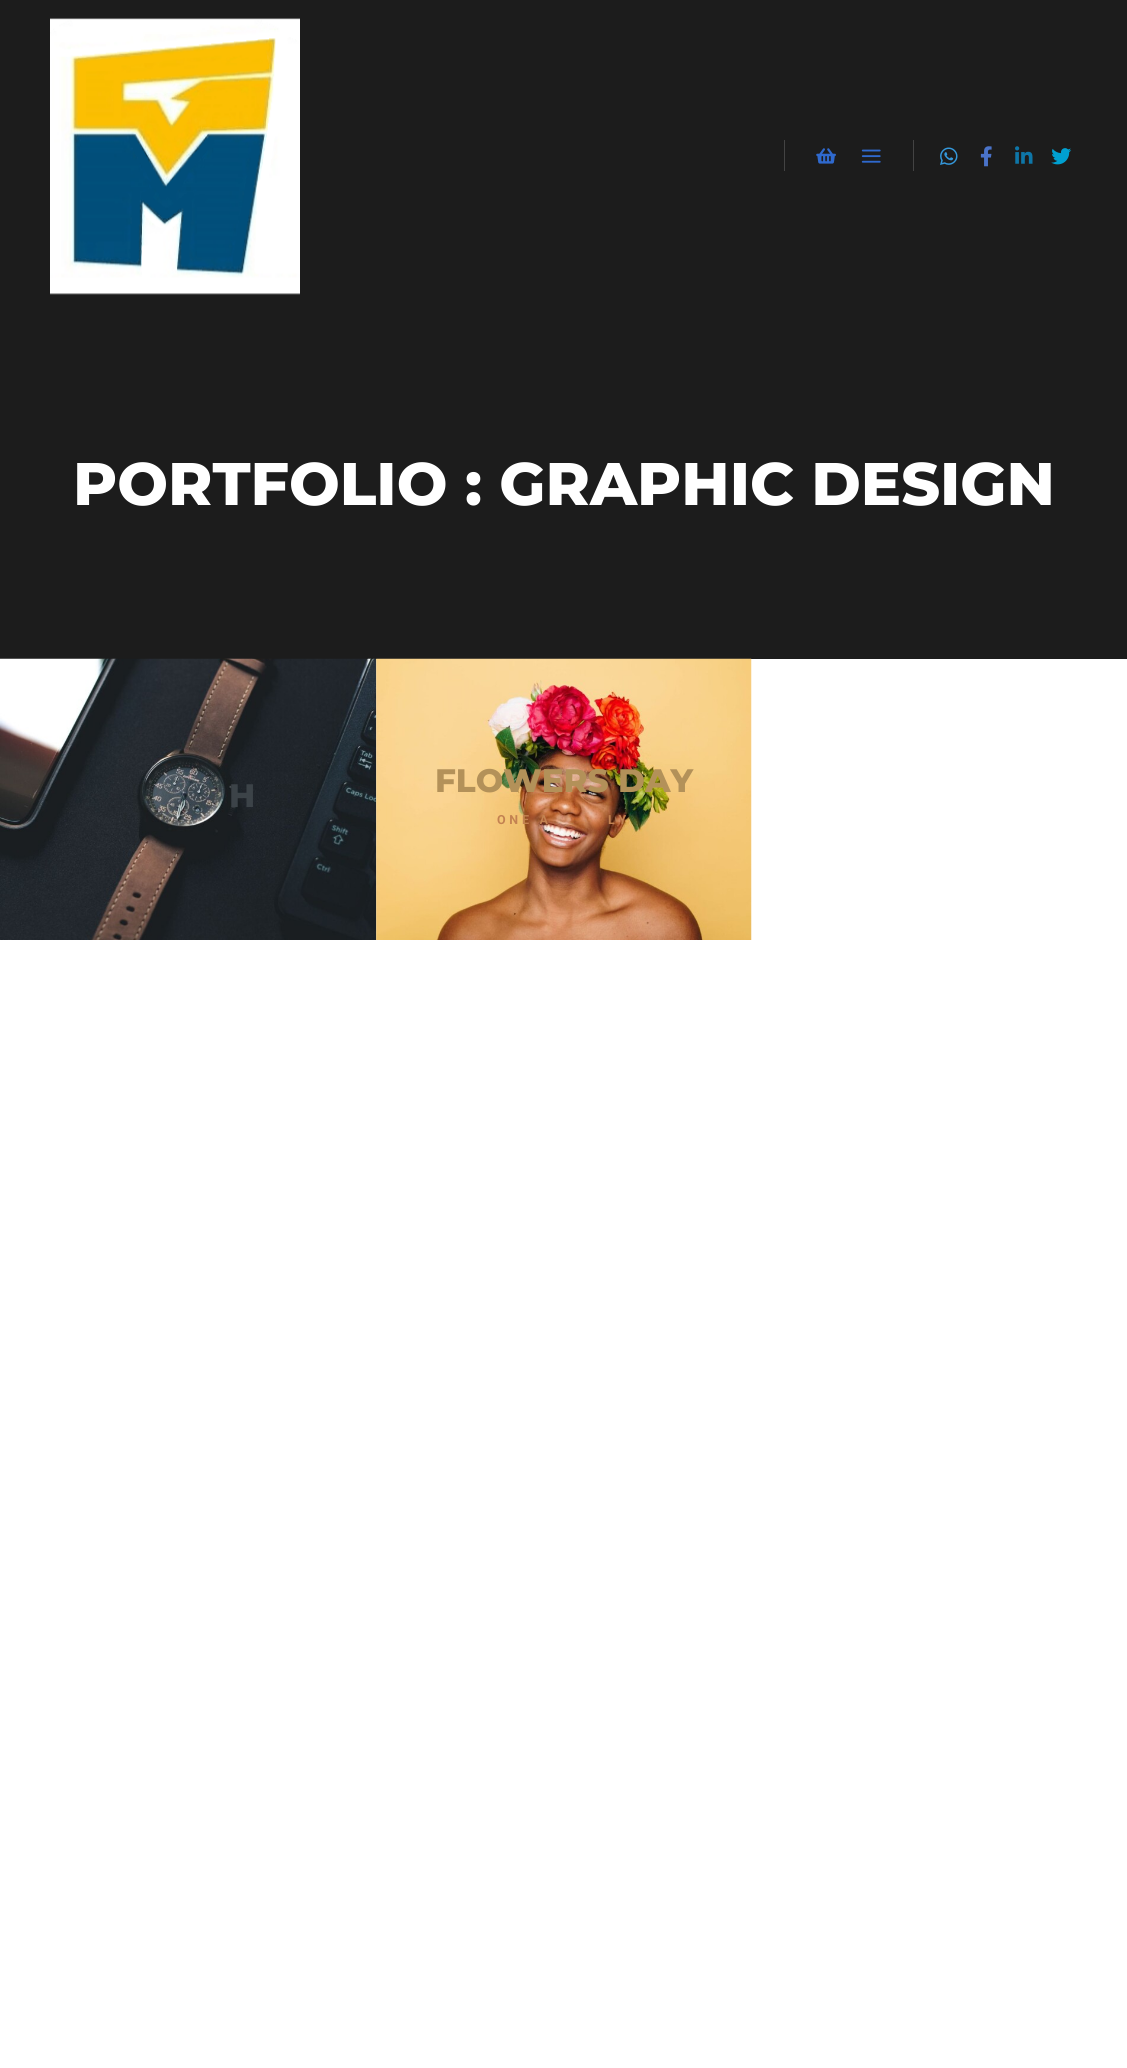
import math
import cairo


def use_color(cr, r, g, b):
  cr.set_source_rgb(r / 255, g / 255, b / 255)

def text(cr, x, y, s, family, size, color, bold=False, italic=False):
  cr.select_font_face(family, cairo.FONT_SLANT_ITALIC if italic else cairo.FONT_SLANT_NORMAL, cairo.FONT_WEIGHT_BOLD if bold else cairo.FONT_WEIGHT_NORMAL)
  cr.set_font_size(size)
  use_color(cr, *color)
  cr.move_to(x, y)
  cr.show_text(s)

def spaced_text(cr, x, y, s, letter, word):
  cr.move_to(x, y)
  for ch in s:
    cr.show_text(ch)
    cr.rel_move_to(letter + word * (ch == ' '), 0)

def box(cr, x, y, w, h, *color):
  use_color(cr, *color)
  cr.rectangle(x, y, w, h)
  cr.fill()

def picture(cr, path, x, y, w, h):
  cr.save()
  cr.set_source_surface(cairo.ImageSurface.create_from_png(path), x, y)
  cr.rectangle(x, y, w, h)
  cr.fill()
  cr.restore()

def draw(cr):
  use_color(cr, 255, 255, 255)
  cr.paint()
  box(cr, 0, 0, 1127, 659, 28, 28, 28)
  picture(cr, "img_01.png", 50, 18, 250, 277)
  box(cr, 784, 140, 1, 31, 67, 67, 67)
  picture(cr, "img_02.png", 816, 148, 20, 16)
  picture(cr, "img_03.png", 861, 149, 20, 14)
  box(cr, 913, 140, 1, 31, 67, 67, 67)
  picture(cr, "img_04.png", 940, 147, 18, 18)
  picture(cr, "img_05.png", 980, 146, 12, 21)
  picture(cr, "img_06.png", 1015, 146, 18, 18)
  picture(cr, "img_07.png", 1051, 148, 21, 17)
  picture(cr, "img_08.png", 0, 658, 377, 282)
  picture(cr, "img_09.png", 376, 658, 376, 282)
  text(cr, 73, 505, "PORTFOLIO : GRAPHIC DESIGN", "Montserrat ExtraBold", 60, (255, 255, 255))
  text(cr, 229, 807, "H", "Montserrat ExtraBold", 32.5, (60, 67, 72))
  text(cr, 435, 792, "FLOWERS DAY", "Montserrat ExtraBold", 32.5, (179, 145, 89))
  cr.select_font_face("Roboto", cairo.FONT_SLANT_NORMAL, cairo.FONT_WEIGHT_BOLD)
  cr.set_font_size(12.5)
  use_color(cr, 195, 130, 81)
  spaced_text(cr, 497, 824, "ONE A", 3.75, 0)
  spaced_text(cr, 608, 824, "LY", 3.75, 0)


surface = cairo.ImageSurface(cairo.FORMAT_RGB24, 1127, 2068)
cr = cairo.Context(surface)
options = cairo.FontOptions()
options.set_hint_metrics(cairo.HINT_METRICS_OFF)
options.set_hint_style(cairo.HINT_STYLE_NONE)
cr.set_font_options(options)
cr.set_miter_limit(4)
draw(cr)
surface.write_to_png("out.png")
